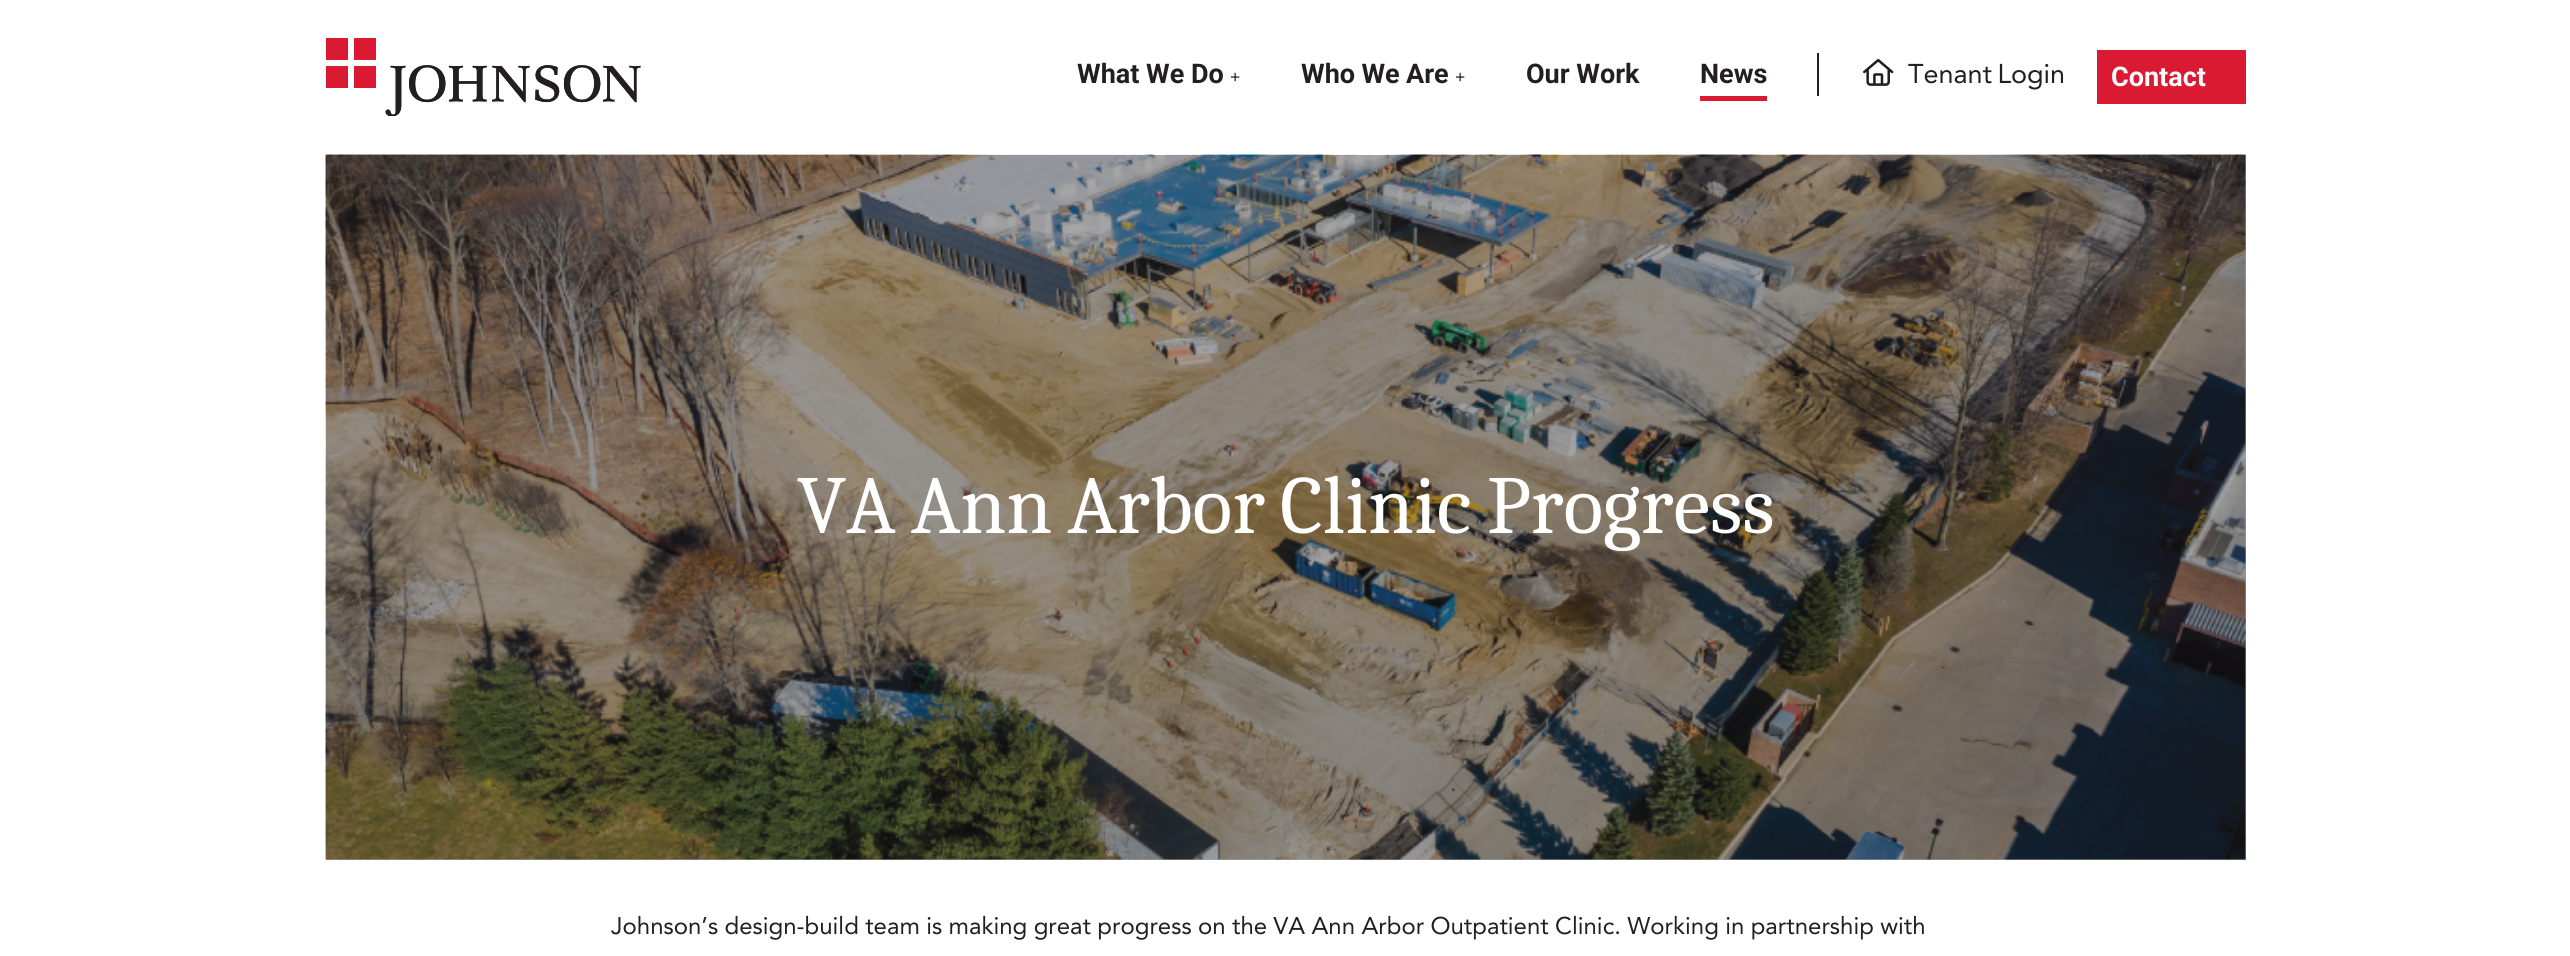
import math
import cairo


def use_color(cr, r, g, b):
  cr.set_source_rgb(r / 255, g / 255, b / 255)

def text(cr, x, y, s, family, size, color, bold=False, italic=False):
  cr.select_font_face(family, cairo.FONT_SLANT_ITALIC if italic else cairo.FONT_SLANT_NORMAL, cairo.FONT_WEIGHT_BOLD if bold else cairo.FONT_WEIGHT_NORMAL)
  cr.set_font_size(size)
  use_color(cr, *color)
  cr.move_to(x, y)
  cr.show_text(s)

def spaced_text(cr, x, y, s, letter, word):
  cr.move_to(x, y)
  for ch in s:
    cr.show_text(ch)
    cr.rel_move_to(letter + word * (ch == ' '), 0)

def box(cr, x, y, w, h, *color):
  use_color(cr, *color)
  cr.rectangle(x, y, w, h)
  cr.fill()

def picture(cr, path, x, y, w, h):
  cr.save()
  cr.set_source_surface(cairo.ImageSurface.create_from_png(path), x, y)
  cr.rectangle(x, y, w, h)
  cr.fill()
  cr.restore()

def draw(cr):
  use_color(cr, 255, 255, 255)
  cr.paint()
  box(cr, 326, 155, 1920, 705, 167, 165, 166)
  picture(cr, "img_01.png", 326, 38, 315, 78)
  box(cr, 1700, 96, 67, 5, 218, 26, 50)
  box(cr, 1817, 53, 2, 43, 35, 31, 32)
  picture(cr, "img_02.png", 1863, 58, 31, 28)
  box(cr, 2097, 50, 149, 54, 218, 26, 50)
  picture(cr, "img_03.png", 325, 154, 1921, 706)
  text(cr, 1077, 83, "What We Do", "Roboto", 27, (35, 31, 32), bold=True)
  text(cr, 1230, 83, "+", "Liberation Serif", 18, (35, 31, 32), bold=True)
  cr.select_font_face("Roboto", cairo.FONT_SLANT_NORMAL, cairo.FONT_WEIGHT_BOLD)
  cr.set_font_size(27)
  spaced_text(cr, 1301, 83, "Who We Are", 0, -0.3)
  text(cr, 1455, 83, "+", "Liberation Serif", 18, (35, 31, 32), bold=True)
  text(cr, 1526, 83, "Our Work", "Roboto", 27, (35, 31, 32), bold=True)
  text(cr, 1700, 83, "News", "Roboto", 27, (35, 31, 32), bold=True)
  cr.select_font_face("Avenir")
  spaced_text(cr, 1908, 83, "Tenant Login", 0, -2)
  text(cr, 2111, 86, "Contact", "Roboto", 27, (255, 255, 255), bold=True)
  cr.select_font_face("Caladea")
  cr.set_font_size(82.5)
  spaced_text(cr, 797, 533, "VA Ann Arbor Clinic Progress", 0, -3)
  cr.select_font_face("Avenir")
  cr.set_font_size(24)
  use_color(cr, 35, 31, 32)
  spaced_text(cr, 611, 934, "Johnson’s design-build team is making great progress on the VA Ann Arbor Outpatient Clinic. Working in partnership with", 0, -0.3)


surface = cairo.ImageSurface(cairo.FORMAT_RGB24, 2570, 956)
cr = cairo.Context(surface)
options = cairo.FontOptions()
options.set_hint_metrics(cairo.HINT_METRICS_OFF)
options.set_hint_style(cairo.HINT_STYLE_NONE)
cr.set_font_options(options)
cr.set_miter_limit(4)
draw(cr)
surface.write_to_png("out.png")
